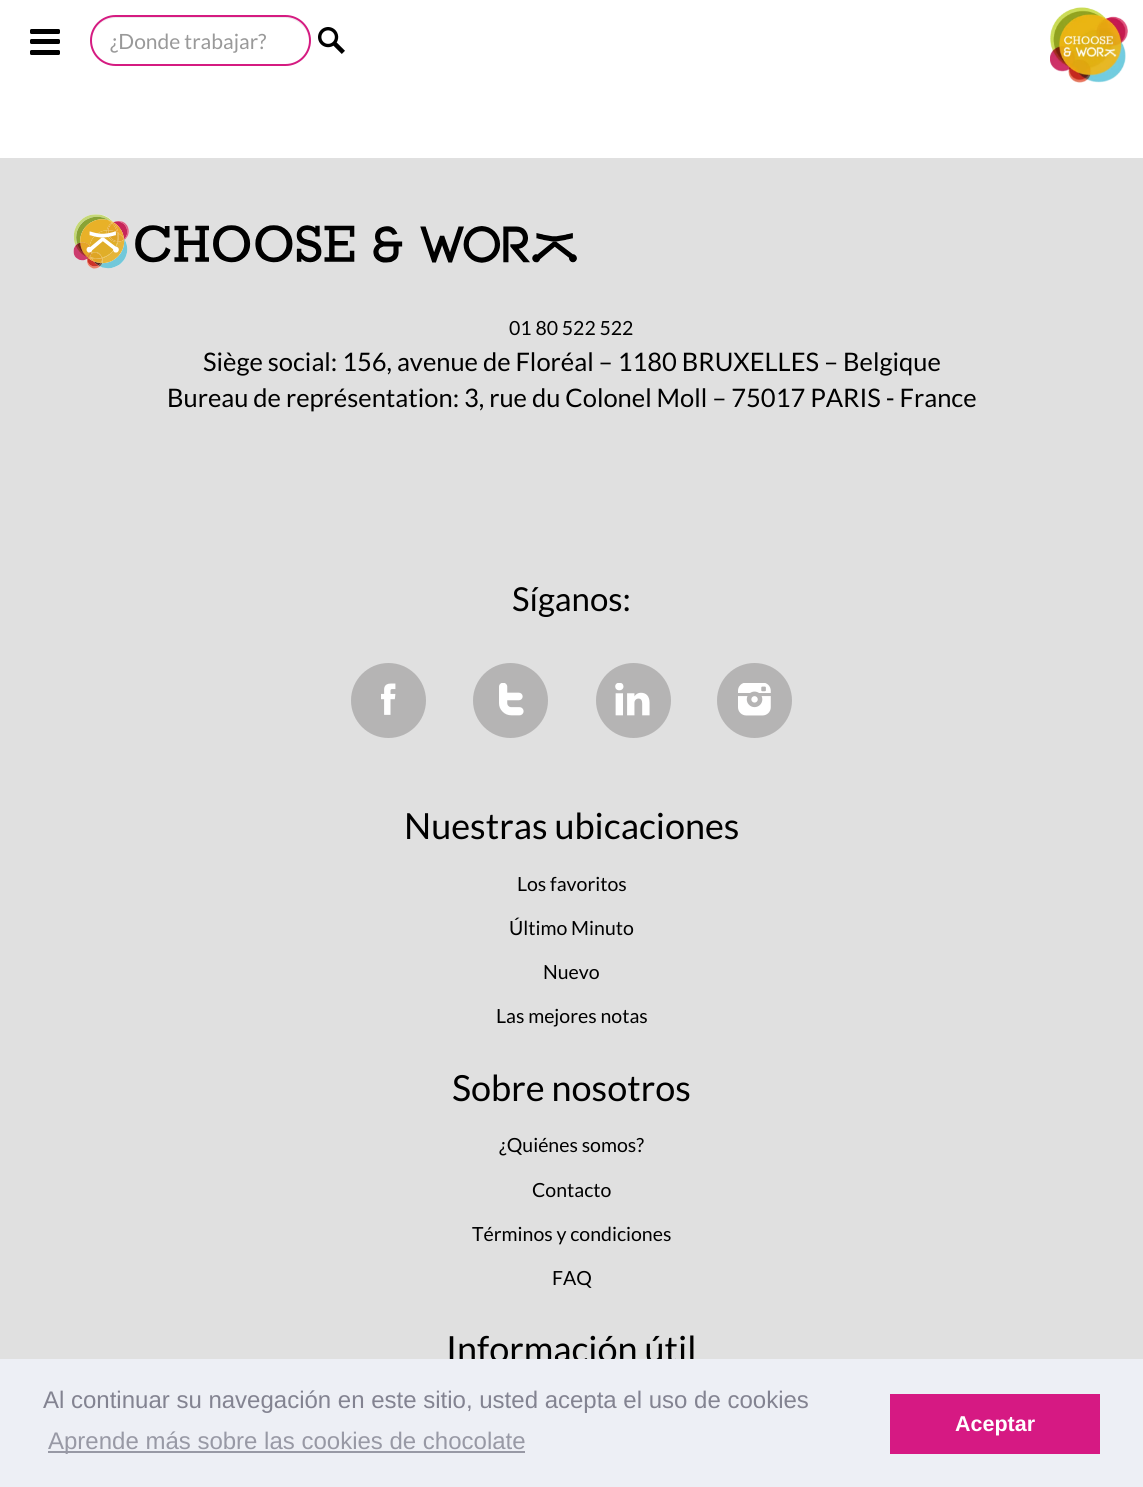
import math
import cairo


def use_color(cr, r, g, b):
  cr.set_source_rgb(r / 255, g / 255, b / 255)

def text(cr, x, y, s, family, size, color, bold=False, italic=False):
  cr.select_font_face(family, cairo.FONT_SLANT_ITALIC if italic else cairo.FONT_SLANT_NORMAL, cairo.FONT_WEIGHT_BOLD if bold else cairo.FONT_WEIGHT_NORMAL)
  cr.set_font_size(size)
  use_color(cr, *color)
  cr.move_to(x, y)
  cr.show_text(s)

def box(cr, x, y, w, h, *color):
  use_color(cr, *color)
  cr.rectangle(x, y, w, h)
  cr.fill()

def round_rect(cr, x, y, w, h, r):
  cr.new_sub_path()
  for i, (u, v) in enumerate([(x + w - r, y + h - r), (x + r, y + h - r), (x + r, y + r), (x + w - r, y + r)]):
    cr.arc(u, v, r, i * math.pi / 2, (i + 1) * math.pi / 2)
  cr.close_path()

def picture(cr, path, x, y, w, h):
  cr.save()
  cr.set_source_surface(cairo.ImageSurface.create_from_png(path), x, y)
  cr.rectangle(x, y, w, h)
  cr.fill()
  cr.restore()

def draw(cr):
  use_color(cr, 255, 255, 255)
  cr.paint()
  use_color(cr, 0, 0, 0)
  round_rect(cr, 30, 29, 30, 5, 1.5)
  cr.fill()
  round_rect(cr, 30, 39, 30, 5, 1.5)
  cr.fill()
  round_rect(cr, 30, 50, 30, 5, 1.5)
  cr.fill()
  use_color(cr, 236, 236, 236)
  cr.new_path()
  cr.move_to(116, 18)
  cr.line_to(285, 18)
  cr.curve_to(298, 18, 309, 29, 309, 42)
  cr.line_to(309, 41)
  cr.curve_to(309, 28, 298, 17, 285, 17)
  cr.line_to(116, 17)
  cr.curve_to(103, 17, 92, 28, 92, 41)
  cr.curve_to(92, 29, 102, 18, 116, 18)
  cr.close_path()
  cr.fill()
  round_rect(cr, 91, 16, 219, 49, 24.5)
  use_color(cr, 213, 27, 129)
  cr.stroke()
  picture(cr, "img_01.png", 318, 27, 27, 27)
  picture(cr, "img_02.png", 1050, 7, 78, 76)
  box(cr, 0, 158, 1143, 1201, 224, 224, 224)
  picture(cr, "img_03.png", 73, 214, 504, 55)
  use_color(cr, 181, 180, 180)
  cr.arc(388.5, 700.5, 37.5, 0, 2 * math.pi)
  cr.fill()
  picture(cr, "img_04.png", 381, 683, 15, 32)
  cr.arc(510.5, 700.5, 37.5, 0, 2 * math.pi)
  cr.fill()
  picture(cr, "img_05.png", 499, 683, 25, 33)
  cr.arc(633.5, 700.5, 37.5, 0, 2 * math.pi)
  cr.fill()
  picture(cr, "img_06.png", 615, 683, 35, 33)
  cr.arc(754.5, 700.5, 37.5, 0, 2 * math.pi)
  cr.fill()
  picture(cr, "img_07.png", 738, 683, 33, 33)
  text(cr, 110, 49, "¿Donde trabajar?", "Lato", 21, (153, 153, 153))
  text(cr, 509, 335, "01 80 522 522", "Lato", 19.5, (0, 0, 0))
  text(cr, 203, 371, "Siège social: 156, avenue de Floréal – 1180 BRUXELLES – Belgique", "Lato", 25.5, (0, 0, 0))
  text(cr, 167, 407, "Bureau de représentation: 3, rue du Colonel Moll – 75017 PARIS - France", "Lato", 25.5, (0, 0, 0))
  text(cr, 512, 611, "Síganos:", "Lato", 33, (0, 0, 0))
  text(cr, 404, 839, "Nuestras ubicaciones", "Lato", 36, (0, 0, 0))
  text(cr, 517, 891, "Los favoritos", "Lato", 19.5, (0, 0, 0))
  text(cr, 509, 935, "Último Minuto", "Lato", 19.5, (0, 0, 0))
  text(cr, 543, 979, "Nuevo", "Lato", 19.5, (0, 0, 0))
  text(cr, 496, 1023, "Las mejores notas", "Lato", 19.5, (0, 0, 0))
  text(cr, 452, 1101, "Sobre nosotros", "Lato", 36, (0, 0, 0))
  text(cr, 499, 1152, "¿Quiénes somos?", "Lato", 19.5, (0, 0, 0))
  text(cr, 532, 1197, "Contacto", "Lato", 19.5, (0, 0, 0))
  text(cr, 472, 1241, "Términos y condiciones", "Lato", 19.5, (0, 0, 0))
  text(cr, 552, 1285, "FAQ", "Lato", 19.5, (0, 0, 0))
  text(cr, 446, 1362, "Información útil", "Lato", 36, (0, 0, 0))
  box(cr, 0, 1359, 1143, 128, 237, 239, 245)
  text(cr, 43, 1408, "Al continuar su navegación en este sitio, usted acepta el uso de cookies", "Liberation Sans", 24, (131, 131, 145))
  box(cr, 48, 1451, 477, 2, 152, 153, 165)
  text(cr, 48, 1449, "Aprende más sobre las cookies de chocolate", "Liberation Sans", 24, (152, 153, 165))
  box(cr, 890, 1394, 210, 60, 214, 25, 131)
  text(cr, 955, 1431, "Aceptar", "Liberation Sans", 21.5, (255, 255, 255), bold=True)


surface = cairo.ImageSurface(cairo.FORMAT_RGB24, 1143, 1487)
cr = cairo.Context(surface)
options = cairo.FontOptions()
options.set_hint_metrics(cairo.HINT_METRICS_OFF)
options.set_hint_style(cairo.HINT_STYLE_NONE)
cr.set_font_options(options)
cr.set_miter_limit(4)
draw(cr)
surface.write_to_png("out.png")
